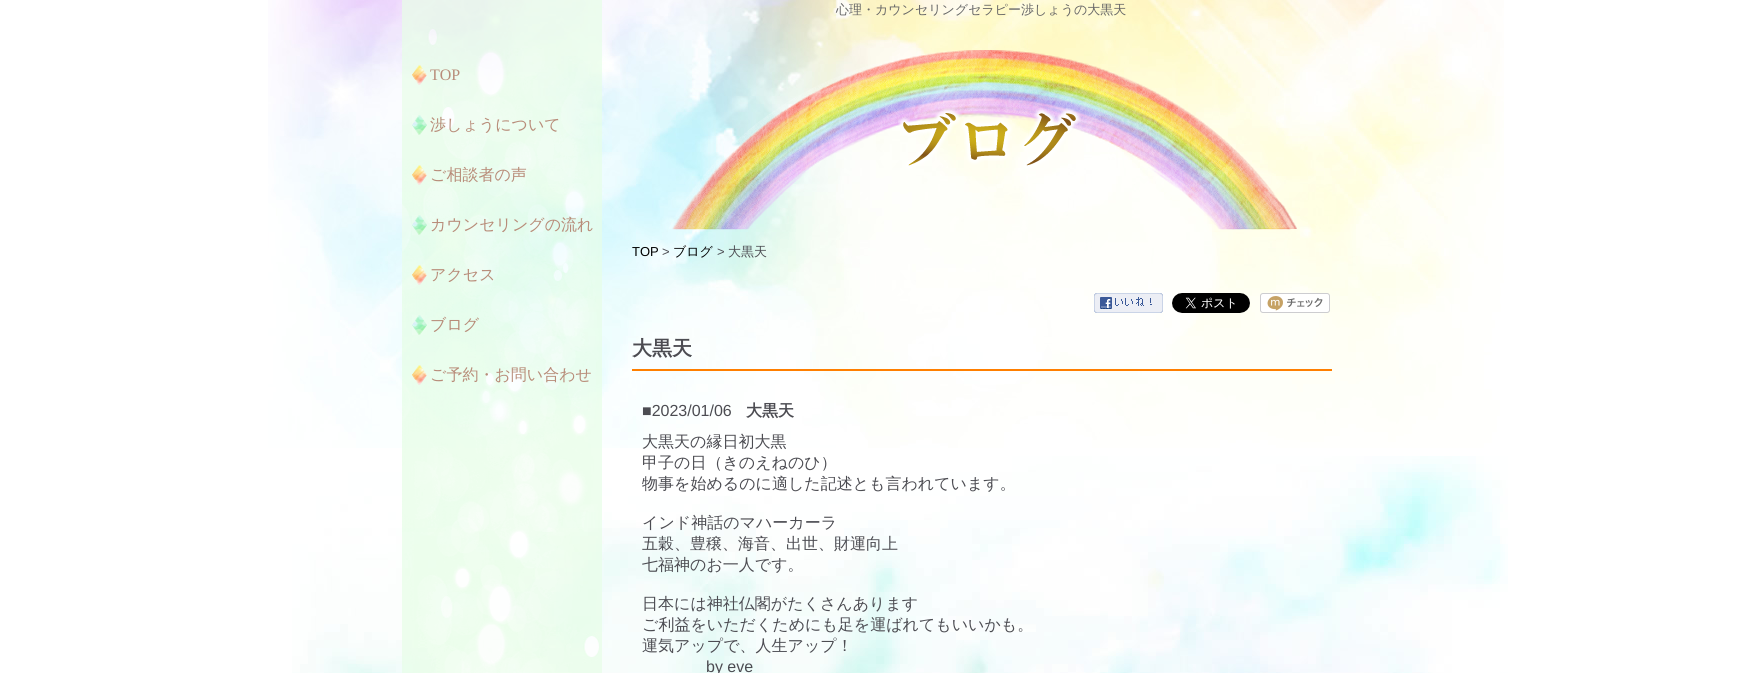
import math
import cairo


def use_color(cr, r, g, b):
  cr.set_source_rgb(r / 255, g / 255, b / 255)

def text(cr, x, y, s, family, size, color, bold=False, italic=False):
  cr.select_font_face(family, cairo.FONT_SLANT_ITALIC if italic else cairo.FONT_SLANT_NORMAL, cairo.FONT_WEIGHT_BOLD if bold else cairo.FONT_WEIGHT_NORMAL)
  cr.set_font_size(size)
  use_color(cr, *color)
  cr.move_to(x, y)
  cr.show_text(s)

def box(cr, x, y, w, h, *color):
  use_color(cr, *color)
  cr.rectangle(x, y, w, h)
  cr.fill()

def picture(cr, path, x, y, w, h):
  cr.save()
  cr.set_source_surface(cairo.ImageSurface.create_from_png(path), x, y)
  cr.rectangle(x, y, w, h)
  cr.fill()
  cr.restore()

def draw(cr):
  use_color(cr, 255, 255, 255)
  cr.paint()
  picture(cr, "img_01.png", 268, 0, 1236, 448)
  picture(cr, "img_11.png", 292, 456, 1216, 217)
  picture(cr, "img_02.png", 402, 0, 200, 673)
  picture(cr, "img_03.png", 412, 65, 15, 20)
  picture(cr, "img_04.png", 412, 115, 15, 20)
  picture(cr, "img_05.png", 412, 165, 15, 20)
  picture(cr, "img_06.png", 412, 215, 15, 20)
  picture(cr, "img_07.png", 412, 265, 15, 20)
  picture(cr, "img_08.png", 412, 315, 15, 20)
  picture(cr, "img_09.png", 412, 365, 15, 20)
  picture(cr, "img_10.png", 669, 50, 628, 180)
  picture(cr, "img_12.png", 1094, 293, 69, 20)
  picture(cr, "img_13.png", 1172, 293, 78, 20)
  picture(cr, "img_14.png", 1260, 293, 70, 20)
  box(cr, 632, 369, 700, 2, 255, 127, 0)
  text(cr, 430, 80, "TOP", "Liberation Serif", 16, (184, 140, 121))
  text(cr, 430, 130, "渉しょうについて", "WenQuanYi Zen Hei Medium", 16, (184, 140, 121))
  text(cr, 430, 180, "ご相談者の声", "WenQuanYi Zen Hei Medium", 16, (184, 140, 121))
  text(cr, 430, 230, "カウンセリングの流れ", "WenQuanYi Zen Hei Medium", 16, (184, 140, 121))
  text(cr, 430, 280, "アクセス", "WenQuanYi Zen Hei Medium", 16, (184, 140, 121))
  text(cr, 430, 330, "ブログ", "WenQuanYi Zen Hei Medium", 16, (184, 140, 121))
  text(cr, 430, 380, "ご予約・お問い合わせ", "WenQuanYi Zen Hei Medium", 16, (184, 140, 121))
  text(cr, 836, 14, "心理・カウンセリングセラピー渉しょうの大黒天", "WenQuanYi Zen Hei Medium", 13, (102, 102, 102))
  text(cr, 632, 256, "TOP", "Liberation Sans", 13, (0, 0, 0))
  text(cr, 662, 256, ">", "Liberation Sans", 13, (76, 76, 82))
  text(cr, 673, 256, "ブログ", "WenQuanYi Zen Hei Medium", 13, (0, 0, 0))
  text(cr, 717, 256, ">", "Liberation Sans", 13, (76, 76, 82))
  text(cr, 728, 256, "大黒天", "WenQuanYi Zen Hei Medium", 13, (76, 76, 82))
  text(cr, 632, 355, "大黒天", "WenQuanYi Zen Hei", 20, (76, 76, 82), bold=True)
  text(cr, 642, 416, "■2023/01/06", "Liberation Sans", 16, (76, 76, 82))
  text(cr, 746, 416, "大黒天", "WenQuanYi Zen Hei", 16, (76, 76, 82), bold=True)
  text(cr, 642, 447, "大黒天の縁日初大黒", "WenQuanYi Zen Hei Medium", 16, (76, 76, 82))
  text(cr, 642, 468, "甲子の日（きのえねのひ）", "WenQuanYi Zen Hei Medium", 16, (76, 76, 82))
  text(cr, 642, 489, "物事を始めるのに適した記述とも言われています。", "WenQuanYi Zen Hei Medium", 16, (76, 76, 82))
  text(cr, 642, 528, "インド神話のマハーカーラ", "WenQuanYi Zen Hei Medium", 16, (76, 76, 82))
  text(cr, 642, 549, "五穀、豊穣、海音、出世、財運向上", "WenQuanYi Zen Hei Medium", 16, (76, 76, 82))
  text(cr, 642, 570, "七福神のお一人です。", "WenQuanYi Zen Hei Medium", 16, (76, 76, 82))
  text(cr, 642, 609, "日本には神社仏閣がたくさんあります", "WenQuanYi Zen Hei Medium", 16, (76, 76, 82))
  text(cr, 642, 630, "ご利益をいただくためにも足を運ばれてもいいかも。", "WenQuanYi Zen Hei Medium", 16, (76, 76, 82))
  text(cr, 642, 651, "運気アップで、人生アップ！", "WenQuanYi Zen Hei Medium", 16, (76, 76, 82))
  text(cr, 706, 672, "by eve", "Liberation Sans", 16, (76, 76, 82))


surface = cairo.ImageSurface(cairo.FORMAT_RGB24, 1763, 673)
cr = cairo.Context(surface)
options = cairo.FontOptions()
options.set_hint_metrics(cairo.HINT_METRICS_OFF)
options.set_hint_style(cairo.HINT_STYLE_NONE)
cr.set_font_options(options)
cr.set_miter_limit(4)
draw(cr)
surface.write_to_png("out.png")
